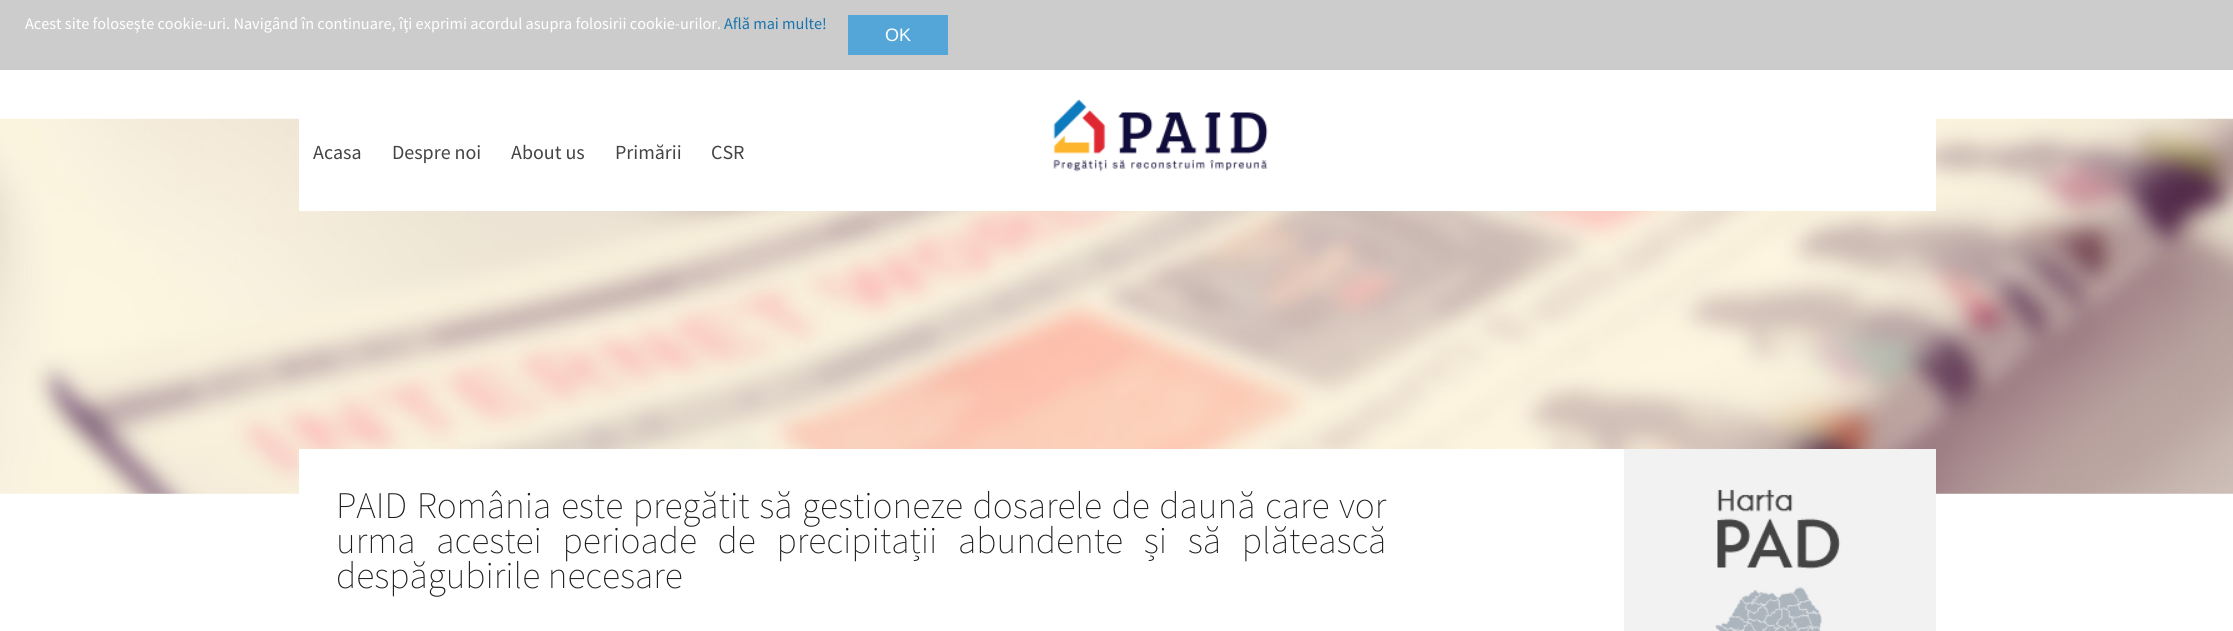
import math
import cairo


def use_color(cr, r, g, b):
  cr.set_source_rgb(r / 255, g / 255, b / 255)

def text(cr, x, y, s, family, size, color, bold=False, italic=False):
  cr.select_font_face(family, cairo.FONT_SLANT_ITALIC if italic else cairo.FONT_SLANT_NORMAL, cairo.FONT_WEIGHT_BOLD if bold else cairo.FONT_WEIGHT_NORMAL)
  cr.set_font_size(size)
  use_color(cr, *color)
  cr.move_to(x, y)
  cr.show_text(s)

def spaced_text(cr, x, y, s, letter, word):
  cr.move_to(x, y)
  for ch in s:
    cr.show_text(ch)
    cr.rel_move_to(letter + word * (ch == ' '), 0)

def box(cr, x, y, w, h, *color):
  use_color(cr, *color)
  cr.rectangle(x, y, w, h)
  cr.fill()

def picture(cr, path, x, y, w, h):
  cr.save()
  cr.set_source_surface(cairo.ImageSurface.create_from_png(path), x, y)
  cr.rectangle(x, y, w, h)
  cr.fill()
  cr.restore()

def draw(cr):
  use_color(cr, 255, 255, 255)
  cr.paint()
  box(cr, 0, 0, 2233, 70, 204, 204, 204)
  box(cr, 848, 15, 100, 40, 84, 166, 216)
  picture(cr, "img_01.png", 0, 118, 2233, 376)
  box(cr, 299, 118, 1637, 93, 255, 255, 255)
  picture(cr, "img_02.png", 1053, 99, 215, 73)
  box(cr, 299, 449, 1325, 45, 255, 255, 255)
  box(cr, 1624, 449, 312, 182, 242, 242, 242)
  picture(cr, "img_03.png", 1715, 489, 126, 142)
  text(cr, 25, 29, "Acest site foloseşte cookie-uri. Navigând în continuare, îţi exprimi acordul asupra folosirii cookie-urilor.", "Source Sans Pro", 16.25, (255, 255, 255))
  text(cr, 724, 29, "Află mai multe!", "Source Sans Pro", 16.25, (24, 116, 173))
  text(cr, 885, 41, "OK", "Liberation Sans", 18, (255, 255, 255))
  text(cr, 313, 159, "Acasa", "Source Sans Pro", 20, (68, 68, 68))
  text(cr, 392, 159, "Despre noi", "Source Sans Pro", 20, (68, 68, 68))
  text(cr, 511, 159, "About us", "Source Sans Pro", 20, (68, 68, 68))
  text(cr, 615, 159, "Primării", "Source Sans Pro", 20, (68, 68, 68))
  text(cr, 711, 159, "CSR", "Source Sans Pro", 20, (68, 68, 68))
  cr.select_font_face("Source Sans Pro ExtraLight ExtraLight")
  cr.set_font_size(37.5)
  use_color(cr, 29, 29, 29)
  spaced_text(cr, 336, 518, "PAID România este pregătit să gestioneze dosarele de daună care vor", 0, 2.1)
  spaced_text(cr, 336, 553, "urma acestei perioade de precipitații abundente și să plătească", 0, 13.25)
  text(cr, 336, 588, "despăgubirile necesare", "Source Sans Pro ExtraLight ExtraLight", 37.5, (29, 29, 29))


surface = cairo.ImageSurface(cairo.FORMAT_RGB24, 2233, 631)
cr = cairo.Context(surface)
options = cairo.FontOptions()
options.set_hint_metrics(cairo.HINT_METRICS_OFF)
options.set_hint_style(cairo.HINT_STYLE_NONE)
cr.set_font_options(options)
cr.set_miter_limit(4)
draw(cr)
surface.write_to_png("out.png")
